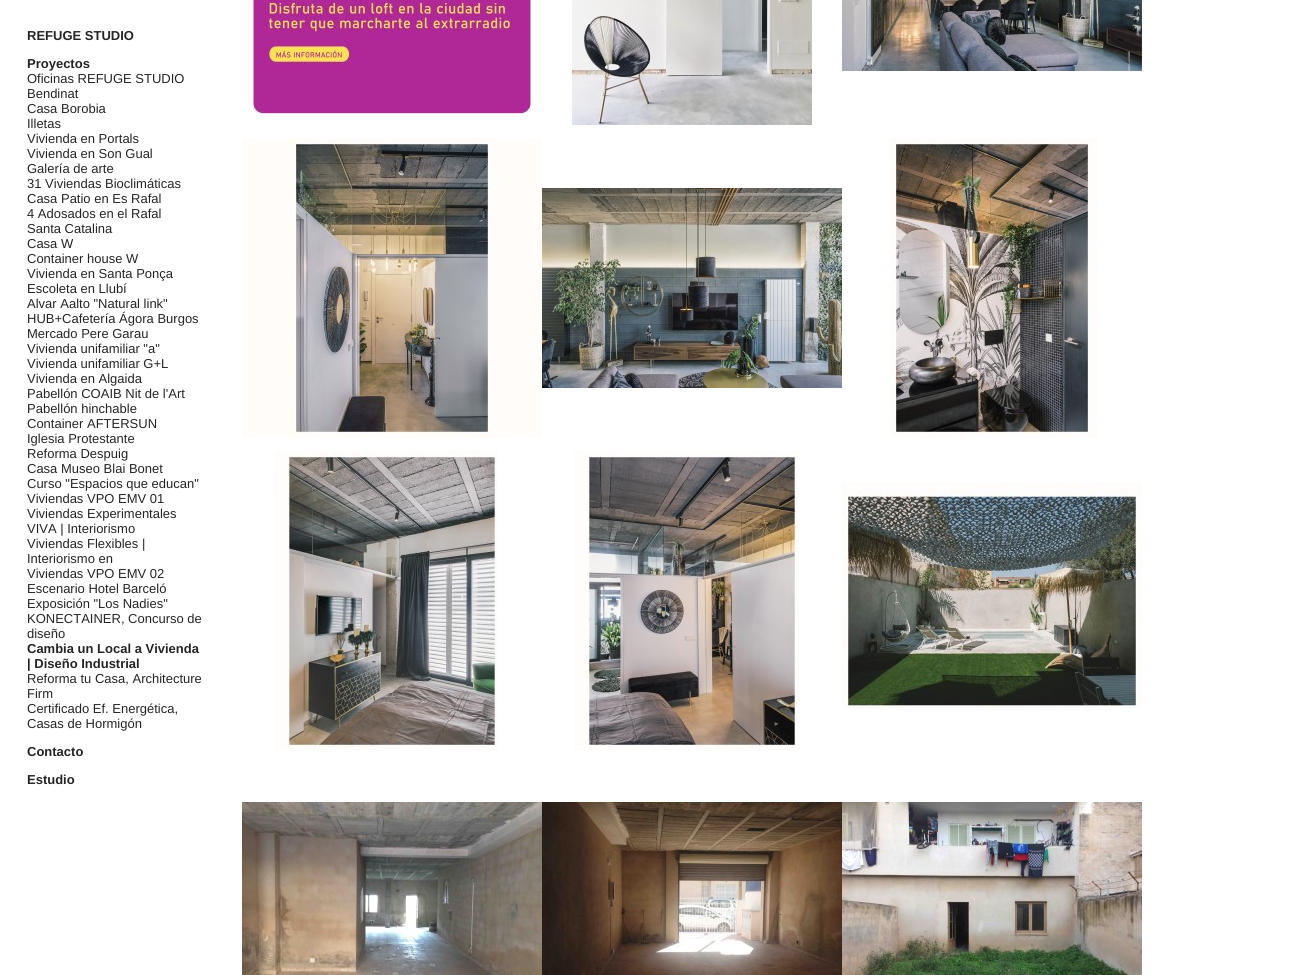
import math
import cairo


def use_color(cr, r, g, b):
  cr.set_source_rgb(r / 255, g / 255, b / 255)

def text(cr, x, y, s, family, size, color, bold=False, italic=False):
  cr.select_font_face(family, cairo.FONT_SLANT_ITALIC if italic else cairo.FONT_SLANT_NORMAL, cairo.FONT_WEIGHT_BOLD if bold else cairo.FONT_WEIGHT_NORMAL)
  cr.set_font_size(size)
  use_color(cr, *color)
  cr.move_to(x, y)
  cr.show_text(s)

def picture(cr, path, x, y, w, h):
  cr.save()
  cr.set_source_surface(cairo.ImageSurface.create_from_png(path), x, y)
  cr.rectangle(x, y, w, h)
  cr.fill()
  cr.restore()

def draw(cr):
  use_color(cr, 255, 255, 255)
  cr.paint()
  picture(cr, "img_01.png", 242, 0, 295, 114)
  picture(cr, "img_02.png", 572, 0, 240, 125)
  picture(cr, "img_03.png", 842, 0, 300, 71)
  picture(cr, "img_04.png", 242, 138, 300, 300)
  picture(cr, "img_05.png", 542, 188, 300, 200)
  picture(cr, "img_06.png", 890, 138, 208, 300)
  picture(cr, "img_07.png", 274, 451, 224, 300)
  picture(cr, "img_08.png", 574, 451, 225, 300)
  picture(cr, "img_09.png", 842, 482, 300, 226)
  picture(cr, "img_10.png", 242, 802, 300, 173)
  picture(cr, "img_11.png", 542, 802, 300, 173)
  picture(cr, "img_12.png", 842, 802, 300, 173)
  text(cr, 27, 40, "REFUGE STUDIO", "Liberation Sans", 13, (38, 37, 37), bold=True)
  text(cr, 27, 68, "Proyectos", "Liberation Sans", 13, (38, 37, 37), bold=True)
  text(cr, 27, 83, "Oficinas REFUGE STUDIO", "Liberation Sans", 13, (38, 37, 37))
  text(cr, 27, 98, "Bendinat", "Liberation Sans", 13, (38, 37, 37))
  text(cr, 27, 113, "Casa Borobia", "Liberation Sans", 13, (38, 37, 37))
  text(cr, 27, 128, "Illetas", "Liberation Sans", 13, (38, 37, 37))
  text(cr, 27, 143, "Vivienda en Portals", "Liberation Sans", 13, (38, 37, 37))
  text(cr, 27, 158, "Vivienda en Son Gual", "Liberation Sans", 13, (38, 37, 37))
  text(cr, 27, 173, "Galería de arte", "Liberation Sans", 13, (38, 37, 37))
  text(cr, 27, 188, "31 Viviendas Bioclimáticas", "Liberation Sans", 13, (38, 37, 37))
  text(cr, 27, 203, "Casa Patio en Es Rafal", "Liberation Sans", 13, (38, 37, 37))
  text(cr, 27, 218, "4 Adosados en el Rafal", "Liberation Sans", 13, (38, 37, 37))
  text(cr, 27, 233, "Santa Catalina", "Liberation Sans", 13, (38, 37, 37))
  text(cr, 27, 248, "Casa W", "Liberation Sans", 13, (38, 37, 37))
  text(cr, 27, 263, "Container house W", "Liberation Sans", 13, (38, 37, 37))
  text(cr, 27, 278, "Vivienda en Santa Ponça", "Liberation Sans", 13, (38, 37, 37))
  text(cr, 27, 293, "Escoleta en Llubí", "Liberation Sans", 13, (38, 37, 37))
  text(cr, 27, 308, "Alvar Aalto \"Natural link\"", "Liberation Sans", 13, (38, 37, 37))
  text(cr, 27, 323, "HUB+Cafetería Ágora Burgos", "Liberation Sans", 13, (38, 37, 37))
  text(cr, 27, 338, "Mercado Pere Garau", "Liberation Sans", 13, (38, 37, 37))
  text(cr, 27, 353, "Vivienda unifamiliar \"a\"", "Liberation Sans", 13, (38, 37, 37))
  text(cr, 27, 368, "Vivienda unifamiliar G+L", "Liberation Sans", 13, (38, 37, 37))
  text(cr, 27, 383, "Vivienda en Algaida", "Liberation Sans", 13, (38, 37, 37))
  text(cr, 27, 398, "Pabellón COAIB Nit de l'Art", "Liberation Sans", 13, (38, 37, 37))
  text(cr, 27, 413, "Pabellón hinchable", "Liberation Sans", 13, (38, 37, 37))
  text(cr, 27, 428, "Container AFTERSUN", "Liberation Sans", 13, (38, 37, 37))
  text(cr, 27, 443, "Iglesia Protestante", "Liberation Sans", 13, (38, 37, 37))
  text(cr, 27, 458, "Reforma Despuig", "Liberation Sans", 13, (38, 37, 37))
  text(cr, 27, 473, "Casa Museo Blai Bonet", "Liberation Sans", 13, (38, 37, 37))
  text(cr, 27, 488, "Curso \"Espacios que educan\"", "Liberation Sans", 13, (38, 37, 37))
  text(cr, 27, 503, "Viviendas VPO EMV 01", "Liberation Sans", 13, (38, 37, 37))
  text(cr, 27, 518, "Viviendas Experimentales", "Liberation Sans", 13, (38, 37, 37))
  text(cr, 27, 533, "VIVA | Interiorismo", "Liberation Sans", 13, (38, 37, 37))
  text(cr, 27, 548, "Viviendas Flexibles |", "Liberation Sans", 13, (38, 37, 37))
  text(cr, 27, 563, "Interiorismo en", "Liberation Sans", 13, (38, 37, 37))
  text(cr, 27, 578, "Viviendas VPO EMV 02", "Liberation Sans", 13, (38, 37, 37))
  text(cr, 27, 593, "Escenario Hotel Barceló", "Liberation Sans", 13, (38, 37, 37))
  text(cr, 27, 608, "Exposición \"Los Nadies\"", "Liberation Sans", 13, (38, 37, 37))
  text(cr, 27, 623, "KONECTAINER, Concurso de", "Liberation Sans", 13, (38, 37, 37))
  text(cr, 27, 638, "diseño", "Liberation Sans", 13, (38, 37, 37))
  text(cr, 27, 653, "Cambia un Local a Vivienda", "Liberation Sans", 13, (38, 37, 37), bold=True)
  text(cr, 27, 668, "| Diseño Industrial", "Liberation Sans", 13, (38, 37, 37), bold=True)
  text(cr, 27, 683, "Reforma tu Casa, Architecture", "Liberation Sans", 13, (38, 37, 37))
  text(cr, 27, 698, "Firm", "Liberation Sans", 13, (38, 37, 37))
  text(cr, 27, 713, "Certificado Ef. Energética,", "Liberation Sans", 13, (38, 37, 37))
  text(cr, 27, 728, "Casas de Hormigón", "Liberation Sans", 13, (38, 37, 37))
  text(cr, 27, 756, "Contacto", "Liberation Sans", 13, (38, 37, 37), bold=True)
  text(cr, 27, 784, "Estudio", "Liberation Sans", 13, (38, 37, 37), bold=True)


surface = cairo.ImageSurface(cairo.FORMAT_RGB24, 1300, 975)
cr = cairo.Context(surface)
options = cairo.FontOptions()
options.set_hint_metrics(cairo.HINT_METRICS_OFF)
options.set_hint_style(cairo.HINT_STYLE_NONE)
cr.set_font_options(options)
cr.set_miter_limit(4)
draw(cr)
surface.write_to_png("out.png")
